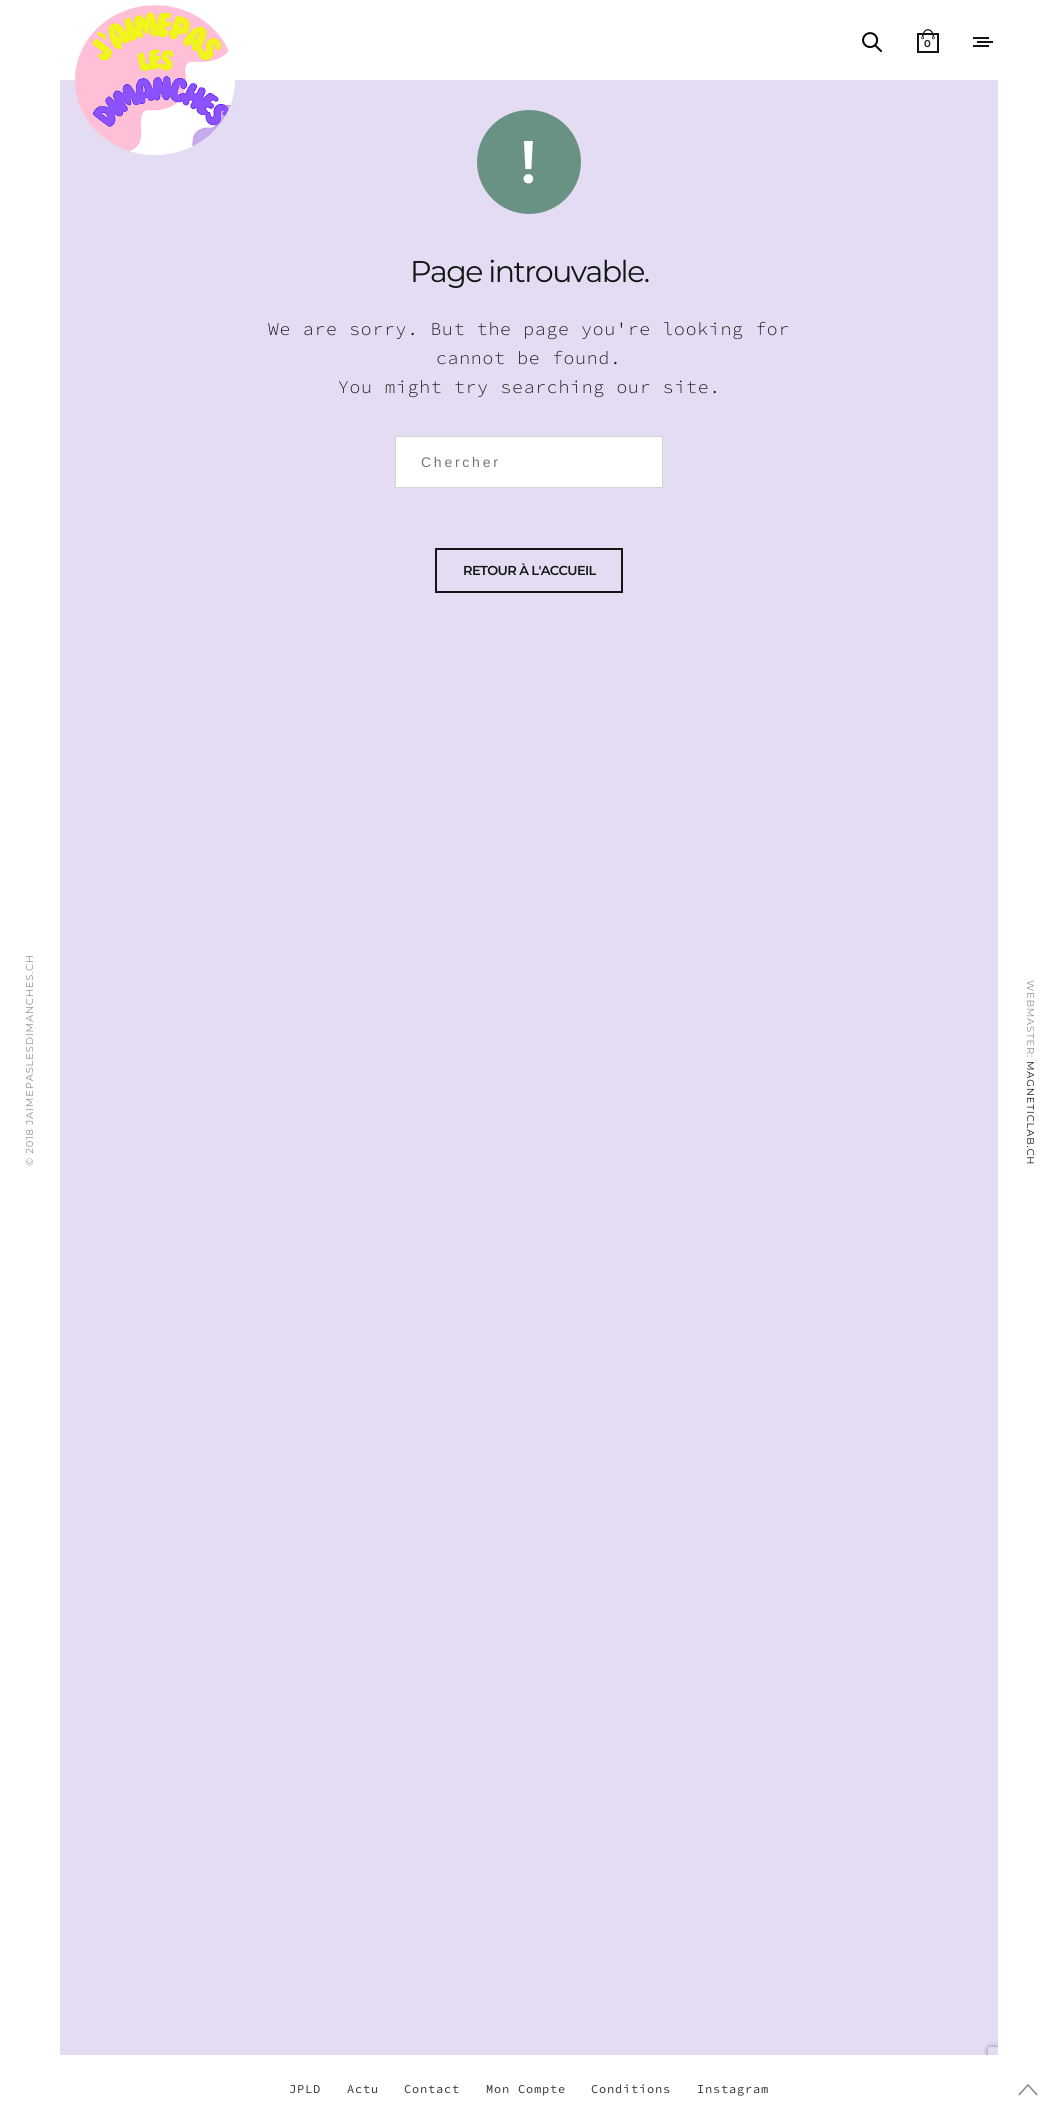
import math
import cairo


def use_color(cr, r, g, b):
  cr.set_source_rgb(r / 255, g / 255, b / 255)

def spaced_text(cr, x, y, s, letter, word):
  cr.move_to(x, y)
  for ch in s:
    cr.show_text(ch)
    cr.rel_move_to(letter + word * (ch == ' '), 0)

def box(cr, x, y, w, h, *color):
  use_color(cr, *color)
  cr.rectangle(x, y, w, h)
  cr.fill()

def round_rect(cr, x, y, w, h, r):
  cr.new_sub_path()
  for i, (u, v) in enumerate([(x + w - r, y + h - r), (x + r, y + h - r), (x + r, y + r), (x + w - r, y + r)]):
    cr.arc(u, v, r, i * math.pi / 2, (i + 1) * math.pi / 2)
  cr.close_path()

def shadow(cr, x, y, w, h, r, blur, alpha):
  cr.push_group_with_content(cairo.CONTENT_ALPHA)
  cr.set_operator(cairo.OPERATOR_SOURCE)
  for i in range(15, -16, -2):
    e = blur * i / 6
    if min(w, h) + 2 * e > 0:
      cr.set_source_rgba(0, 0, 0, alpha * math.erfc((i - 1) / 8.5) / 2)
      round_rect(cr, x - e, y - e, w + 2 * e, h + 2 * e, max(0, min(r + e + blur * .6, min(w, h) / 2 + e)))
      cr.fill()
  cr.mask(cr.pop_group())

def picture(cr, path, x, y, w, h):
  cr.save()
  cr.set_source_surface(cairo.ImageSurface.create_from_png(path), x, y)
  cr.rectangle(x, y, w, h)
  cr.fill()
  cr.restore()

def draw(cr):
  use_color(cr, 227, 220, 242)
  cr.paint()
  box(cr, 0, 0, 1058, 80, 255, 255, 255)
  picture(cr, "img_01.png", 75, 5, 160, 150)
  picture(cr, "img_02.png", 862, 32, 20, 20)
  picture(cr, "img_03.png", 917, 29, 22, 24)
  box(cr, 973, 37, 16, 2, 21, 21, 21)
  box(cr, 977, 41, 16, 2, 21, 21, 21)
  box(cr, 973, 45, 16, 2, 21, 21, 21)
  use_color(cr, 106, 146, 132)
  cr.arc(529, 162, 52, 0, 2 * math.pi)
  cr.fill()
  use_color(cr, 255, 255, 255)
  cr.rectangle(395.5, 436.5, 267, 51)
  cr.fill_preserve()
  use_color(cr, 212, 212, 212)
  cr.set_line_width(1)
  cr.stroke()
  cr.rectangle(436, 549, 186, 43)
  use_color(cr, 21, 21, 21)
  cr.set_line_width(2)
  cr.stroke()
  box(cr, 0, 80, 60, 1975, 255, 255, 255)
  cr.save()
  cr.set_fill_rule(cairo.FILL_RULE_EVEN_ODD)
  cr.new_path()
  cr.move_to(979, 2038)
  cr.line_to(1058, 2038)
  cr.line_to(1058, 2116)
  cr.line_to(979, 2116)
  cr.close_path()
  cr.move_to(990, 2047)
  cr.line_to(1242, 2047)
  cr.curve_to(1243, 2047, 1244, 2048, 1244, 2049)
  cr.line_to(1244, 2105)
  cr.curve_to(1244, 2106, 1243, 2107, 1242, 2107)
  cr.line_to(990, 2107)
  cr.curve_to(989, 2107, 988, 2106, 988, 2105)
  cr.line_to(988, 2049)
  cr.curve_to(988, 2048, 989, 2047, 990, 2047)
  cr.close_path()
  cr.clip()
  use_color(cr, 128, 128, 128)
  shadow(cr, 988, 2047, 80, 60, 2, 2.5, 1)
  cr.restore()
  box(cr, 998, 80, 60, 1975, 255, 255, 255)
  box(cr, 0, 2055, 1058, 66, 255, 255, 255)
  picture(cr, "img_04.png", 1018, 2084, 20, 12)
  cr.select_font_face("Montserrat SemiBold")
  cr.set_font_size(10)
  use_color(cr, 21, 21, 21)
  spaced_text(cr, 924, 47, "0", 0.8, 0)
  cr.set_font_size(60)
  use_color(cr, 255, 255, 255)
  spaced_text(cr, 520, 183, "!", 0.8, 0)
  cr.select_font_face("Montserrat")
  cr.set_font_size(30)
  use_color(cr, 21, 21, 21)
  spaced_text(cr, 410, 282, "Page introuvable.", -1.5, 0)
  cr.select_font_face("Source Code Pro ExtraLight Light")
  cr.set_font_size(18)
  spaced_text(cr, 268, 335, "We are sorry. But the page you're looking for", 0.8, 0)
  spaced_text(cr, 436, 364, "cannot be found.", 0.8, 0)
  spaced_text(cr, 338, 393, "You might try searching our site.", 0.8, 0)
  cr.select_font_face("Liberation Sans")
  cr.set_font_size(14)
  use_color(cr, 117, 117, 117)
  spaced_text(cr, 421, 467, "Chercher", 2.75, 0)
  cr.select_font_face("Montserrat SemiBold")
  cr.set_font_size(13)
  use_color(cr, 21, 21, 21)
  spaced_text(cr, 463, 575, "RETOUR À L'ACCUEIL", -0.6, 0)
  cr.select_font_face("Montserrat")
  cr.set_font_size(10)
  use_color(cr, 144, 144, 144)
  cr.save()
  cr.translate(33, 1166)
  cr.rotate(-90 * math.pi / 180)
  spaced_text(cr, 0, 0, "© 2018 JAIMEPASLESDIMANCHES.CH", 0.8, 0)
  cr.restore()
  cr.save()
  cr.translate(1027, 980)
  cr.rotate(90 * math.pi / 180)
  spaced_text(cr, 0, 0, "WEBMASTER:", 0.8, 0)
  cr.restore()
  use_color(cr, 21, 21, 21)
  cr.save()
  cr.translate(1027, 1061)
  cr.rotate(90 * math.pi / 180)
  spaced_text(cr, 0, 0, "MAGNETICLAB.CH", 0.8, 0)
  cr.restore()
  cr.select_font_face("Source Code Pro ExtraLight")
  cr.set_font_size(12)
  use_color(cr, 51, 51, 51)
  spaced_text(cr, 289, 2093, "JPLD", 0.8, 0)
  spaced_text(cr, 347, 2093, "Actu", 0.8, 0)
  spaced_text(cr, 404, 2093, "Contact", 0.8, 0)
  spaced_text(cr, 486, 2093, "Mon Compte", 0.8, 0)
  spaced_text(cr, 591, 2093, "Conditions", 0.8, 0)
  spaced_text(cr, 697, 2093, "Instagram", 0.8, 0)


surface = cairo.ImageSurface(cairo.FORMAT_RGB24, 1058, 2121)
cr = cairo.Context(surface)
options = cairo.FontOptions()
options.set_hint_metrics(cairo.HINT_METRICS_OFF)
options.set_hint_style(cairo.HINT_STYLE_NONE)
cr.set_font_options(options)
cr.set_miter_limit(4)
draw(cr)
surface.write_to_png("out.png")
